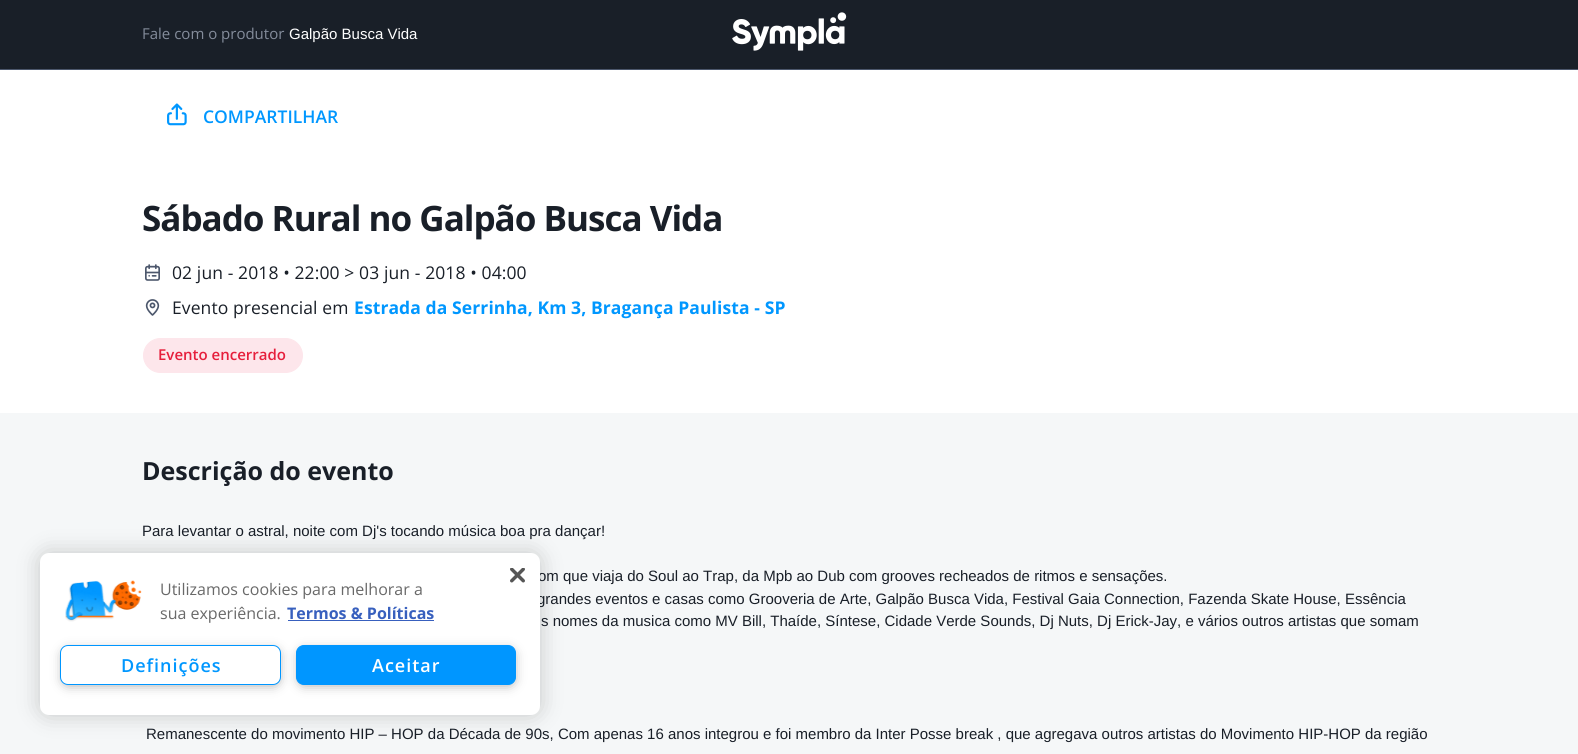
import math
import cairo


def use_color(cr, r, g, b):
  cr.set_source_rgb(r / 255, g / 255, b / 255)

def text(cr, x, y, s, family, size, color, bold=False, italic=False):
  cr.select_font_face(family, cairo.FONT_SLANT_ITALIC if italic else cairo.FONT_SLANT_NORMAL, cairo.FONT_WEIGHT_BOLD if bold else cairo.FONT_WEIGHT_NORMAL)
  cr.set_font_size(size)
  use_color(cr, *color)
  cr.move_to(x, y)
  cr.show_text(s)

def spaced_text(cr, x, y, s, letter, word):
  cr.move_to(x, y)
  for ch in s:
    cr.show_text(ch)
    cr.rel_move_to(letter + word * (ch == ' '), 0)

def box(cr, x, y, w, h, *color):
  use_color(cr, *color)
  cr.rectangle(x, y, w, h)
  cr.fill()

def round_rect(cr, x, y, w, h, r):
  cr.new_sub_path()
  for i, (u, v) in enumerate([(x + w - r, y + h - r), (x + r, y + h - r), (x + r, y + r), (x + w - r, y + r)]):
    cr.arc(u, v, r, i * math.pi / 2, (i + 1) * math.pi / 2)
  cr.close_path()

def shadow(cr, x, y, w, h, r, blur, alpha):
  cr.push_group_with_content(cairo.CONTENT_ALPHA)
  cr.set_operator(cairo.OPERATOR_SOURCE)
  for i in range(15, -16, -2):
    e = blur * i / 6
    if min(w, h) + 2 * e > 0:
      cr.set_source_rgba(0, 0, 0, alpha * math.erfc((i - 1) / 8.5) / 2)
      round_rect(cr, x - e, y - e, w + 2 * e, h + 2 * e, max(0, min(r + e + blur * .6, min(w, h) / 2 + e)))
      cr.fill()
  cr.mask(cr.pop_group())

def picture(cr, path, x, y, w, h):
  cr.save()
  cr.set_source_surface(cairo.ImageSurface.create_from_png(path), x, y)
  cr.rectangle(x, y, w, h)
  cr.fill()
  cr.restore()

def draw(cr):
  use_color(cr, 255, 255, 255)
  cr.paint()
  box(cr, 0, 0, 1578, 69, 25, 31, 40)
  box(cr, 0, 69, 1578, 1, 76, 87, 108)
  picture(cr, "img_01.png", 732, 12, 115, 39)
  picture(cr, "img_02.png", 167, 103, 20, 23)
  picture(cr, "img_03.png", 145, 264, 15, 17)
  picture(cr, "img_04.png", 145, 299, 15, 17)
  use_color(cr, 253, 230, 235)
  round_rect(cr, 143.5, 338.5, 159, 34, 17)
  cr.fill_preserve()
  cr.set_line_width(1)
  cr.stroke()
  box(cr, 0, 413, 1578, 341, 245, 247, 248)
  use_color(cr, 0, 0, 0)
  shadow(cr, 40, 553, 500, 162, 9, 11, 0.2)
  text(cr, 142, 39, "Fale com o produtor", "Open Sans", 15, (132, 140, 155))
  text(cr, 289, 39, "Galpão Busca Vida", "Liberation Sans", 15, (255, 255, 255))
  text(cr, 203, 123, "COMPARTILHAR", "Open Sans SemiBold", 17.5, (0, 151, 255))
  cr.select_font_face("Open Sans", cairo.FONT_SLANT_NORMAL, cairo.FONT_WEIGHT_BOLD)
  cr.set_font_size(35)
  use_color(cr, 25, 31, 40)
  spaced_text(cr, 142, 231, "Sábado Rural no Galpão Busca Vida", -1, 0)
  cr.select_font_face("Open Sans")
  cr.set_font_size(17.5)
  spaced_text(cr, 172, 279, "02 jun - 2018 • 22:00 > 03 jun - 2018 • 04:00", 0.1, 0)
  spaced_text(cr, 172, 314, "Evento presencial em", 0.1, 0)
  cr.select_font_face("Open Sans", cairo.FONT_SLANT_NORMAL, cairo.FONT_WEIGHT_BOLD)
  use_color(cr, 0, 151, 255)
  spaced_text(cr, 354, 314, "Estrada da Serrinha, Km 3, Bragança Paulista - SP", 0.1, 0)
  text(cr, 158, 360, "Evento encerrado", "Open Sans SemiBold", 15, (230, 31, 60))
  text(cr, 142, 480, "Descrição do evento", "Open Sans", 25, (25, 31, 40), bold=True)
  text(cr, 142, 536, "Para levantar o astral, noite com Dj's tocando música boa pra dançar!", "Liberation Sans", 15, (25, 31, 40))
  text(cr, 538, 581, "om que viaja do Soul ao Trap, da Mpb ao Dub com grooves recheados de ritmos e sensações.", "Liberation Sans", 15, (25, 31, 40))
  text(cr, 537, 604, "grandes eventos e casas como Grooveria de Arte, Galpão Busca Vida, Festival Gaia Connection, Fazenda Skate House, Essência", "Liberation Sans", 15, (25, 31, 40))
  text(cr, 541, 626, "s nomes da musica como MV Bill, Thaíde, Síntese, Cidade Verde Sounds, Dj Nuts, Dj Erick-Jay, e vários outros artistas que somam", "Liberation Sans", 15, (25, 31, 40))
  text(cr, 146, 739, "Remanescente do movimento HIP – HOP da Década de 90s, Com apenas 16 anos integrou e foi membro da Inter Posse break , que agregava outros artistas do Movimento HIP-HOP da região", "Liberation Sans", 15, (25, 31, 40))
  use_color(cr, 255, 255, 255)
  round_rect(cr, 40, 553, 500, 162, 9)
  cr.fill()
  picture(cr, "img_05.png", 65, 580, 77, 42)
  picture(cr, "img_06.png", 510, 568, 15, 15)
  text(cr, 160, 595, "Utilizamos cookies para melhorar a", "Open Sans", 16, (105, 105, 105))
  text(cr, 160, 619, "sua experiência.", "Open Sans", 16, (105, 105, 105))
  text(cr, 287, 619, "Termos & Políticas", "Open Sans", 16, (56, 96, 190), bold=True)
  box(cr, 288, 620, 146, 1, 56, 96, 190)
  use_color(cr, 153, 153, 153)
  shadow(cr, 300, 651, 213, 33, 4, 6, 1)
  use_color(cr, 0, 150, 255)
  round_rect(cr, 296.5, 645.5, 219, 39, 7.5)
  cr.fill_preserve()
  cr.stroke()
  use_color(cr, 153, 153, 153)
  shadow(cr, 64, 651, 214, 33, 4, 6, 1)
  use_color(cr, 255, 255, 255)
  round_rect(cr, 60.5, 645.5, 220, 39, 7.5)
  cr.fill_preserve()
  use_color(cr, 0, 150, 255)
  cr.stroke()
  cr.select_font_face("Open Sans SemiBold")
  cr.set_font_size(18)
  use_color(cr, 0, 151, 255)
  spaced_text(cr, 121, 672, "Definições", 1, 0)
  use_color(cr, 255, 255, 255)
  spaced_text(cr, 372, 672, "Aceitar", 1, 0)


surface = cairo.ImageSurface(cairo.FORMAT_RGB24, 1578, 754)
cr = cairo.Context(surface)
options = cairo.FontOptions()
options.set_hint_metrics(cairo.HINT_METRICS_OFF)
options.set_hint_style(cairo.HINT_STYLE_NONE)
cr.set_font_options(options)
cr.set_miter_limit(4)
draw(cr)
surface.write_to_png("out.png")
